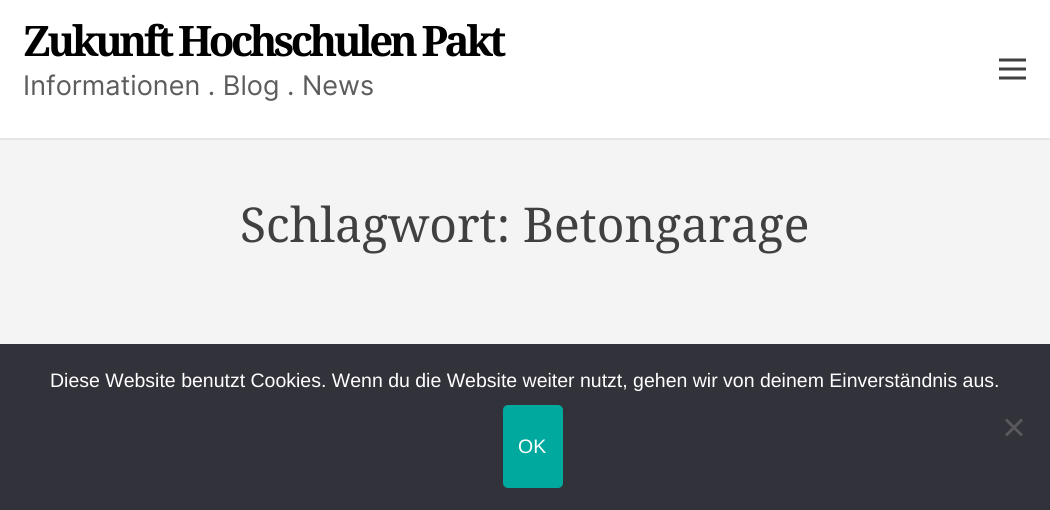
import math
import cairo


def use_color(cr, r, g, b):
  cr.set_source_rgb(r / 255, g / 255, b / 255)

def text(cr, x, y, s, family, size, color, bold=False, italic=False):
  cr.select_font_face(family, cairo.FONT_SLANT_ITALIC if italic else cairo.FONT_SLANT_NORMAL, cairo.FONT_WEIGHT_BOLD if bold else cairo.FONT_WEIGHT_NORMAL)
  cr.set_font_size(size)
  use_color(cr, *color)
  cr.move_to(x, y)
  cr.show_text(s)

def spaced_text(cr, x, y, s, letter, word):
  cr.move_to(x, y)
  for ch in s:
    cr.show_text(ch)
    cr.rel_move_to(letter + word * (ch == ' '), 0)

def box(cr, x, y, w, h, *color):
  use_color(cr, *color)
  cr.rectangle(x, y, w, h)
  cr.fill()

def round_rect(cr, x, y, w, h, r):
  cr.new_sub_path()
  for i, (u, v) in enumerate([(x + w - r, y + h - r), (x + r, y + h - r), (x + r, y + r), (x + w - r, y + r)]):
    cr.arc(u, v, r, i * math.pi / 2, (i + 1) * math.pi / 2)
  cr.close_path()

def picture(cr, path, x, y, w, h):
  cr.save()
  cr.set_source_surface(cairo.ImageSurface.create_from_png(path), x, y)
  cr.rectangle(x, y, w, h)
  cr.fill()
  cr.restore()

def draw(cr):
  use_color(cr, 244, 244, 244)
  cr.paint()
  box(cr, 0, 0, 1050, 138, 255, 255, 255)
  box(cr, 0, 138, 1050, 2, 230, 230, 230)
  picture(cr, "img_01.png", 999, 58, 27, 22)
  box(cr, 0, 344, 1050, 166, 50, 50, 58)
  use_color(cr, 89, 89, 93)
  cr.new_path()
  cr.move_to(1021, 418.5)
  cr.line_to(1023, 420.5)
  cr.line_to(1007, 436.5)
  cr.line_to(1005, 434.5)
  cr.close_path()
  cr.fill()
  cr.new_path()
  cr.move_to(1005, 420.5)
  cr.line_to(1007, 418.5)
  cr.line_to(1023, 434.5)
  cr.line_to(1021, 436.5)
  cr.close_path()
  cr.fill()
  use_color(cr, 0, 169, 157)
  round_rect(cr, 503, 405, 60, 83, 5)
  cr.fill()
  cr.select_font_face("Noto Serif", cairo.FONT_SLANT_NORMAL, cairo.FONT_WEIGHT_BOLD)
  cr.set_font_size(42)
  use_color(cr, 0, 0, 0)
  spaced_text(cr, 23, 56, "Zukunft Hochschulen Pakt", -3.6, 0)
  text(cr, 23, 95, "Informationen . Blog . News", "Inter", 27, (93, 93, 93))
  text(cr, 240, 242, "Schlagwort: Betongarage", "Noto Serif", 48, (64, 64, 64))
  text(cr, 50, 387, "Diese Website benutzt Cookies. Wenn du die Website weiter nutzt, gehen wir von deinem Einverständnis aus.", "Liberation Sans", 19.5, (255, 255, 255))
  text(cr, 518, 453, "OK", "Liberation Sans", 19.5, (255, 255, 255))


surface = cairo.ImageSurface(cairo.FORMAT_RGB24, 1050, 510)
cr = cairo.Context(surface)
options = cairo.FontOptions()
options.set_hint_metrics(cairo.HINT_METRICS_OFF)
options.set_hint_style(cairo.HINT_STYLE_NONE)
cr.set_font_options(options)
cr.set_miter_limit(4)
draw(cr)
surface.write_to_png("out.png")
